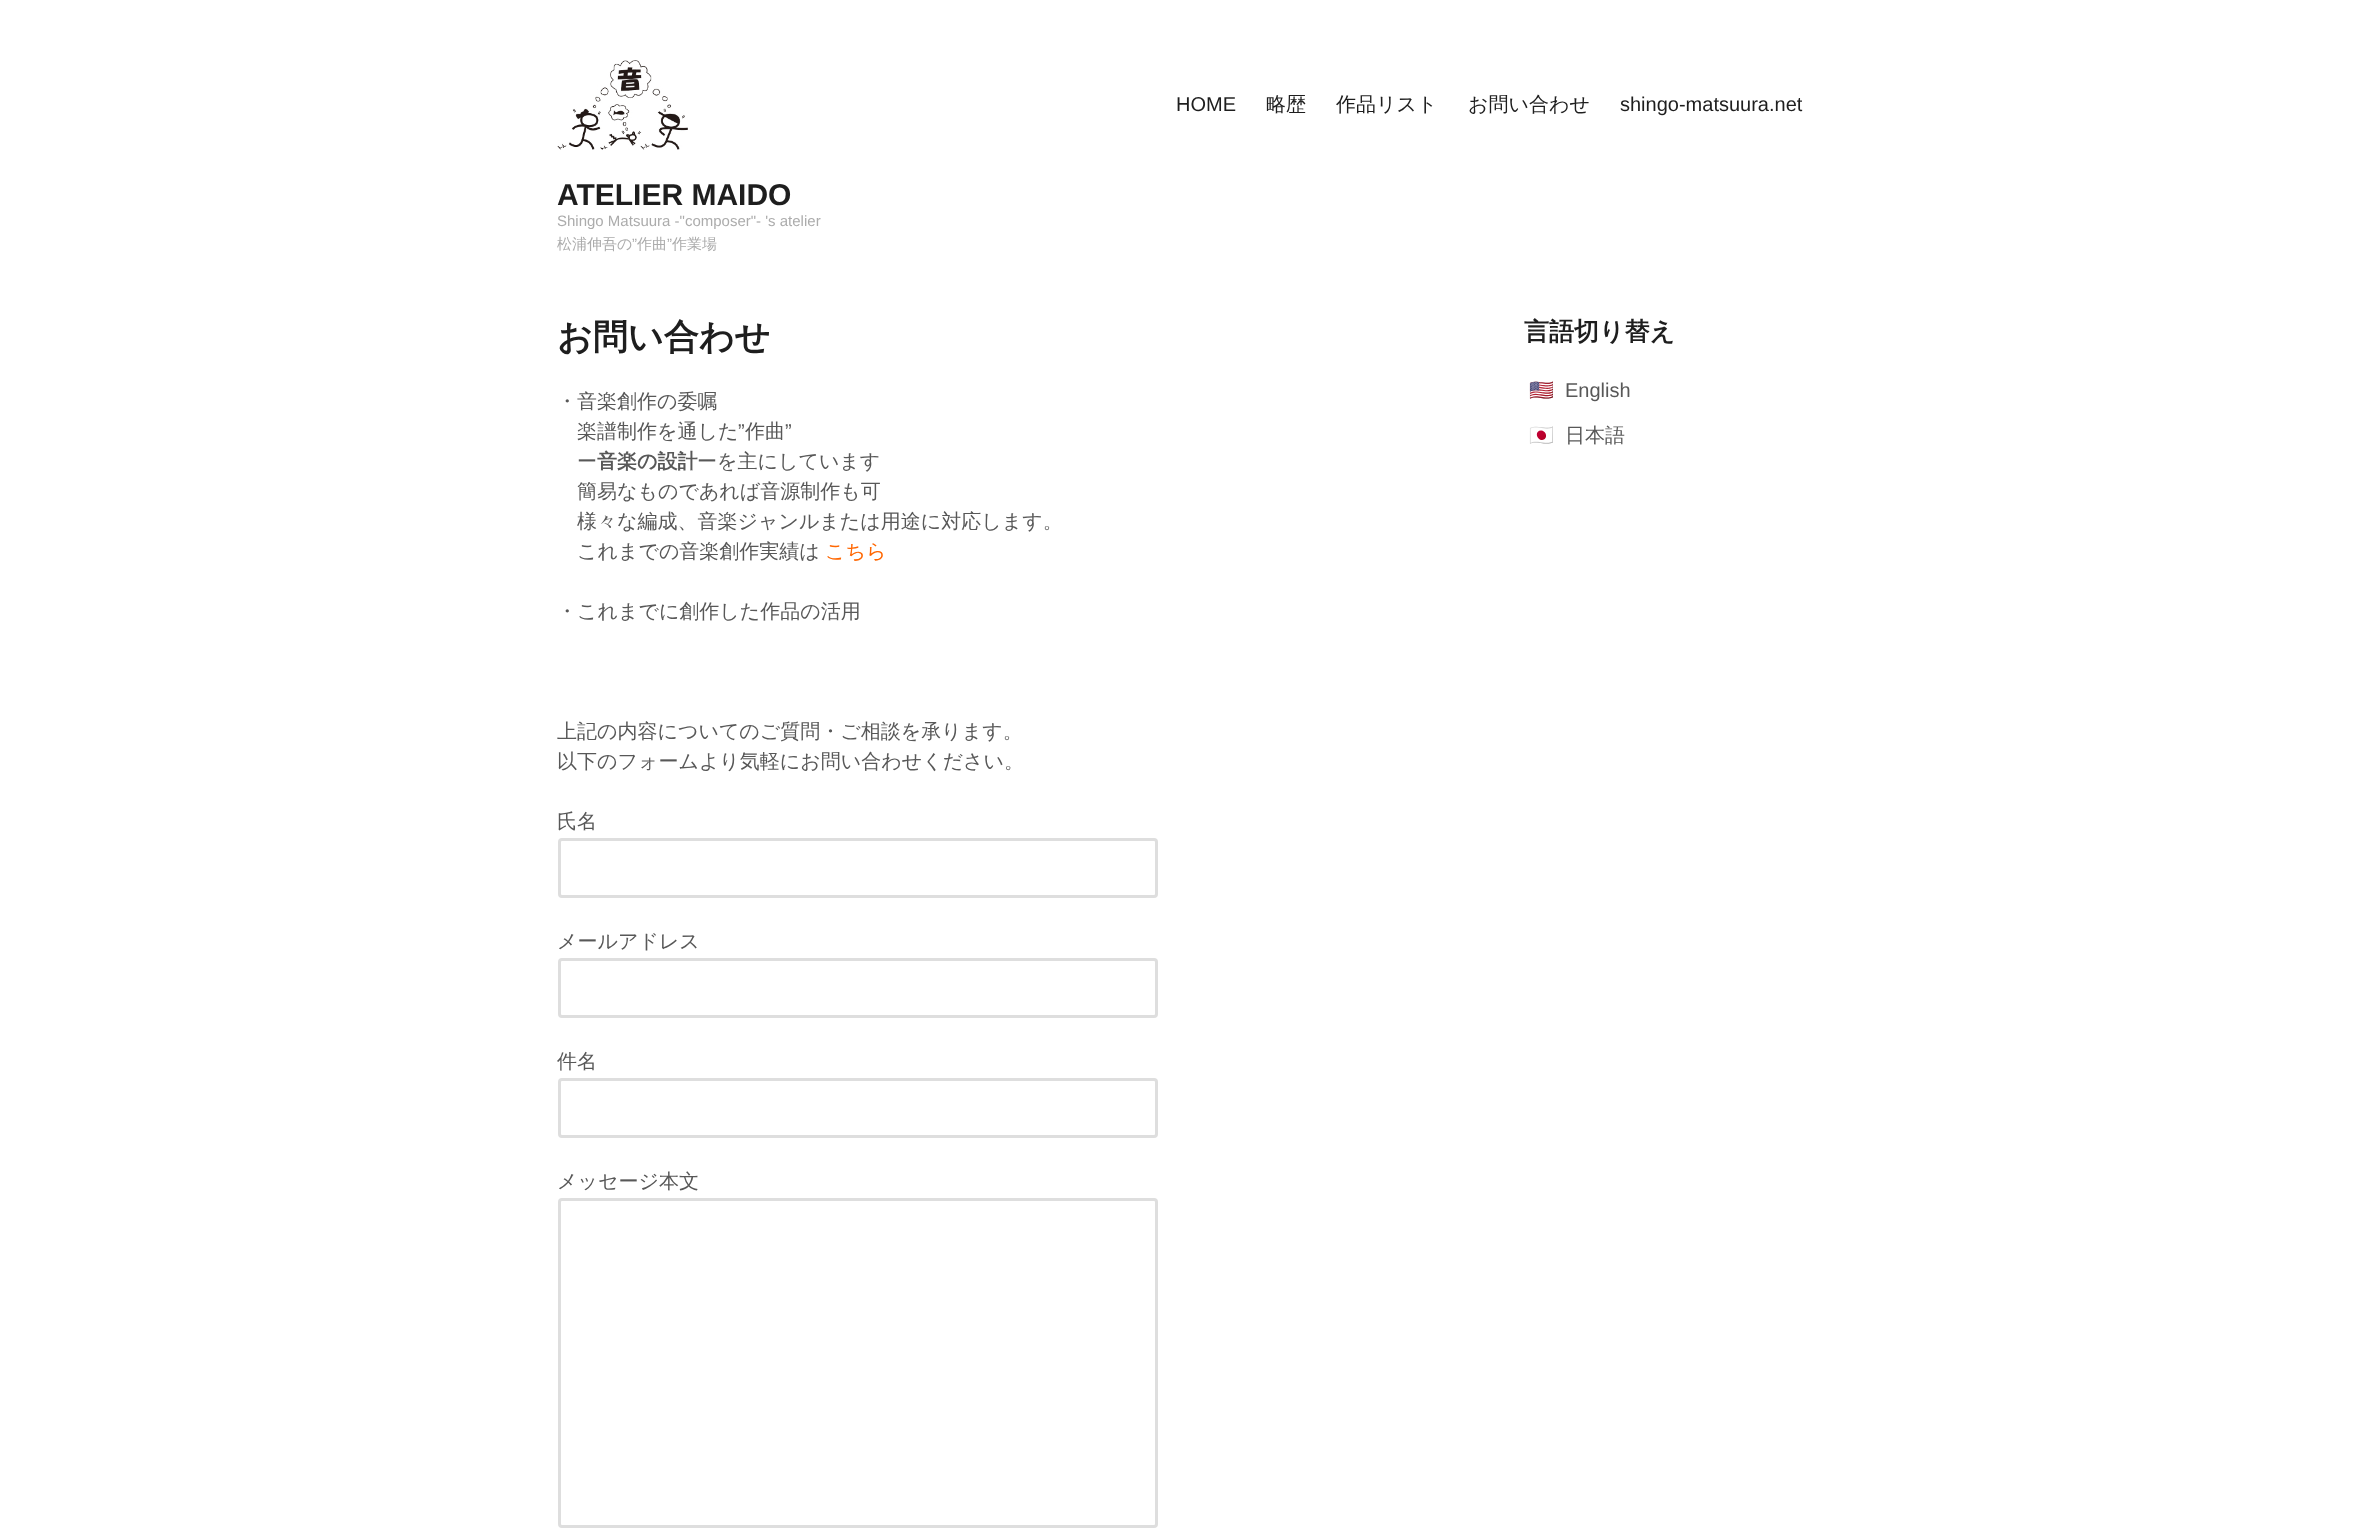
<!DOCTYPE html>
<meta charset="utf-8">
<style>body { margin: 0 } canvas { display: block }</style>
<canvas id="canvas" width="2358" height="1535"></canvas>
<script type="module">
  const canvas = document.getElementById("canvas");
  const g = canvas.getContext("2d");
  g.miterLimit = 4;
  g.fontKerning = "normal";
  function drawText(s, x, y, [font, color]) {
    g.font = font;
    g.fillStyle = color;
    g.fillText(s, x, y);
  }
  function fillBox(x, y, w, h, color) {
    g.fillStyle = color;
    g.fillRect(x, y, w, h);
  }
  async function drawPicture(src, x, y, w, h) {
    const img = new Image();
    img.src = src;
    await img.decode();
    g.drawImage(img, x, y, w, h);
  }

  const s1 = ["20px Liberation Sans", "#1E1E1E"];
  const s2 = ["500 20px WenQuanYi Zen Hei", "#1E1E1E"];
  const s3 = ["bold 30px Liberation Sans", "#1E1E1E"];
  const s4 = ["15px Liberation Sans", "#ACACAC"];
  const s5 = ["500 15px WenQuanYi Zen Hei", "#ACACAC"];
  const s6 = ["bold 35px WenQuanYi Zen Hei", "#1E1E1E"];
  const s7 = ["500 20px WenQuanYi Zen Hei", "#585858"];
  const s8 = ["20px Liberation Sans", "#585858"];
  const s9 = ["bold 20px WenQuanYi Zen Hei", "#585858"];
  const s10 = ["500 20px WenQuanYi Zen Hei", "#FF6600"];
  const s11 = ["bold 25px WenQuanYi Zen Hei", "#1E1E1E"];
  const s12 = ["20px Noto Color Emoji", "#585858"];

  fillBox(0, 0, 2358, 1535, "#FFFFFF");
  drawText("HOME", 1176, 111, s1);
  drawText("略歴", 1266, 111, s2);
  drawText("作品リスト", 1336, 111, s2);
  drawText("お問い合わせ", 1468, 111, s2);
  drawText("shingo-matsuura.net", 1620, 111, s1);
  await drawPicture("pic1.png", 557, 60, 131, 90);
  drawText("ATELIER MAIDO", 557, 205, s3);
  drawText("Shingo Matsuura -\"composer\"- 's atelier", 557, 226, s4);
  drawText("松浦伸吾の", 557, 249, s5);
  drawText("”", 632, 249, s4);
  drawText("作曲", 637, 249, s5);
  drawText("”", 667, 249, s4);
  drawText("作業場", 672, 249, s5);
  drawText("お問い合わせ", 557, 349, s6);
  drawText("・音楽創作の委嘱", 557, 408, s7);
  drawText("楽譜制作を通した", 577, 438, s7);
  drawText("”", 738, 438, s8);
  drawText("作曲", 745, 438, s7);
  drawText("”", 785, 438, s8);
  drawText("ー", 577, 468, s7);
  drawText("音楽の設計", 597, 468, s9);
  drawText("ーを主にしています", 697, 468, s7);
  drawText("簡易なものであれば音源制作も可", 577, 498, s7);
  drawText("様々な編成、音楽ジャンルまたは用途に対応します。", 577, 528, s7);
  drawText("これまでの音楽創作実績は", 577, 558, s7);
  drawText("こちら", 825, 558, s10);
  drawText("・これまでに創作した作品の活用", 557, 618, s7);
  drawText("上記の内容についてのご質問・ご相談を承ります。", 557, 738, s7);
  drawText("以下のフォームより気軽にお問い合わせください。", 557, 768, s7);
  drawText("氏名", 557, 828, s7);
  g.beginPath();
  g.roundRect(559.5, 839.5, 597, 57, 2.5);
  g.strokeStyle = "#DEDEDE";
  g.lineWidth = 3;
  g.stroke();
  drawText("メールアドレス", 557, 948, s7);
  g.beginPath();
  g.roundRect(559.5, 959.5, 597, 57, 2.5);
  g.stroke();
  drawText("件名", 557, 1068, s7);
  g.beginPath();
  g.roundRect(559.5, 1079.5, 597, 57, 2.5);
  g.stroke();
  drawText("メッセージ本文", 557, 1188, s7);
  g.beginPath();
  g.roundRect(559.5, 1199.5, 597, 327, 2.5);
  g.stroke();
  drawText("言語切り替え", 1524, 340, s11);
  drawText("🇺🇸", 1529, 397, s12);
  drawText("English", 1565, 397, s8);
  drawText("🇯🇵", 1529, 442, s12);
  drawText("日本語", 1565, 442, s7);
</script>
